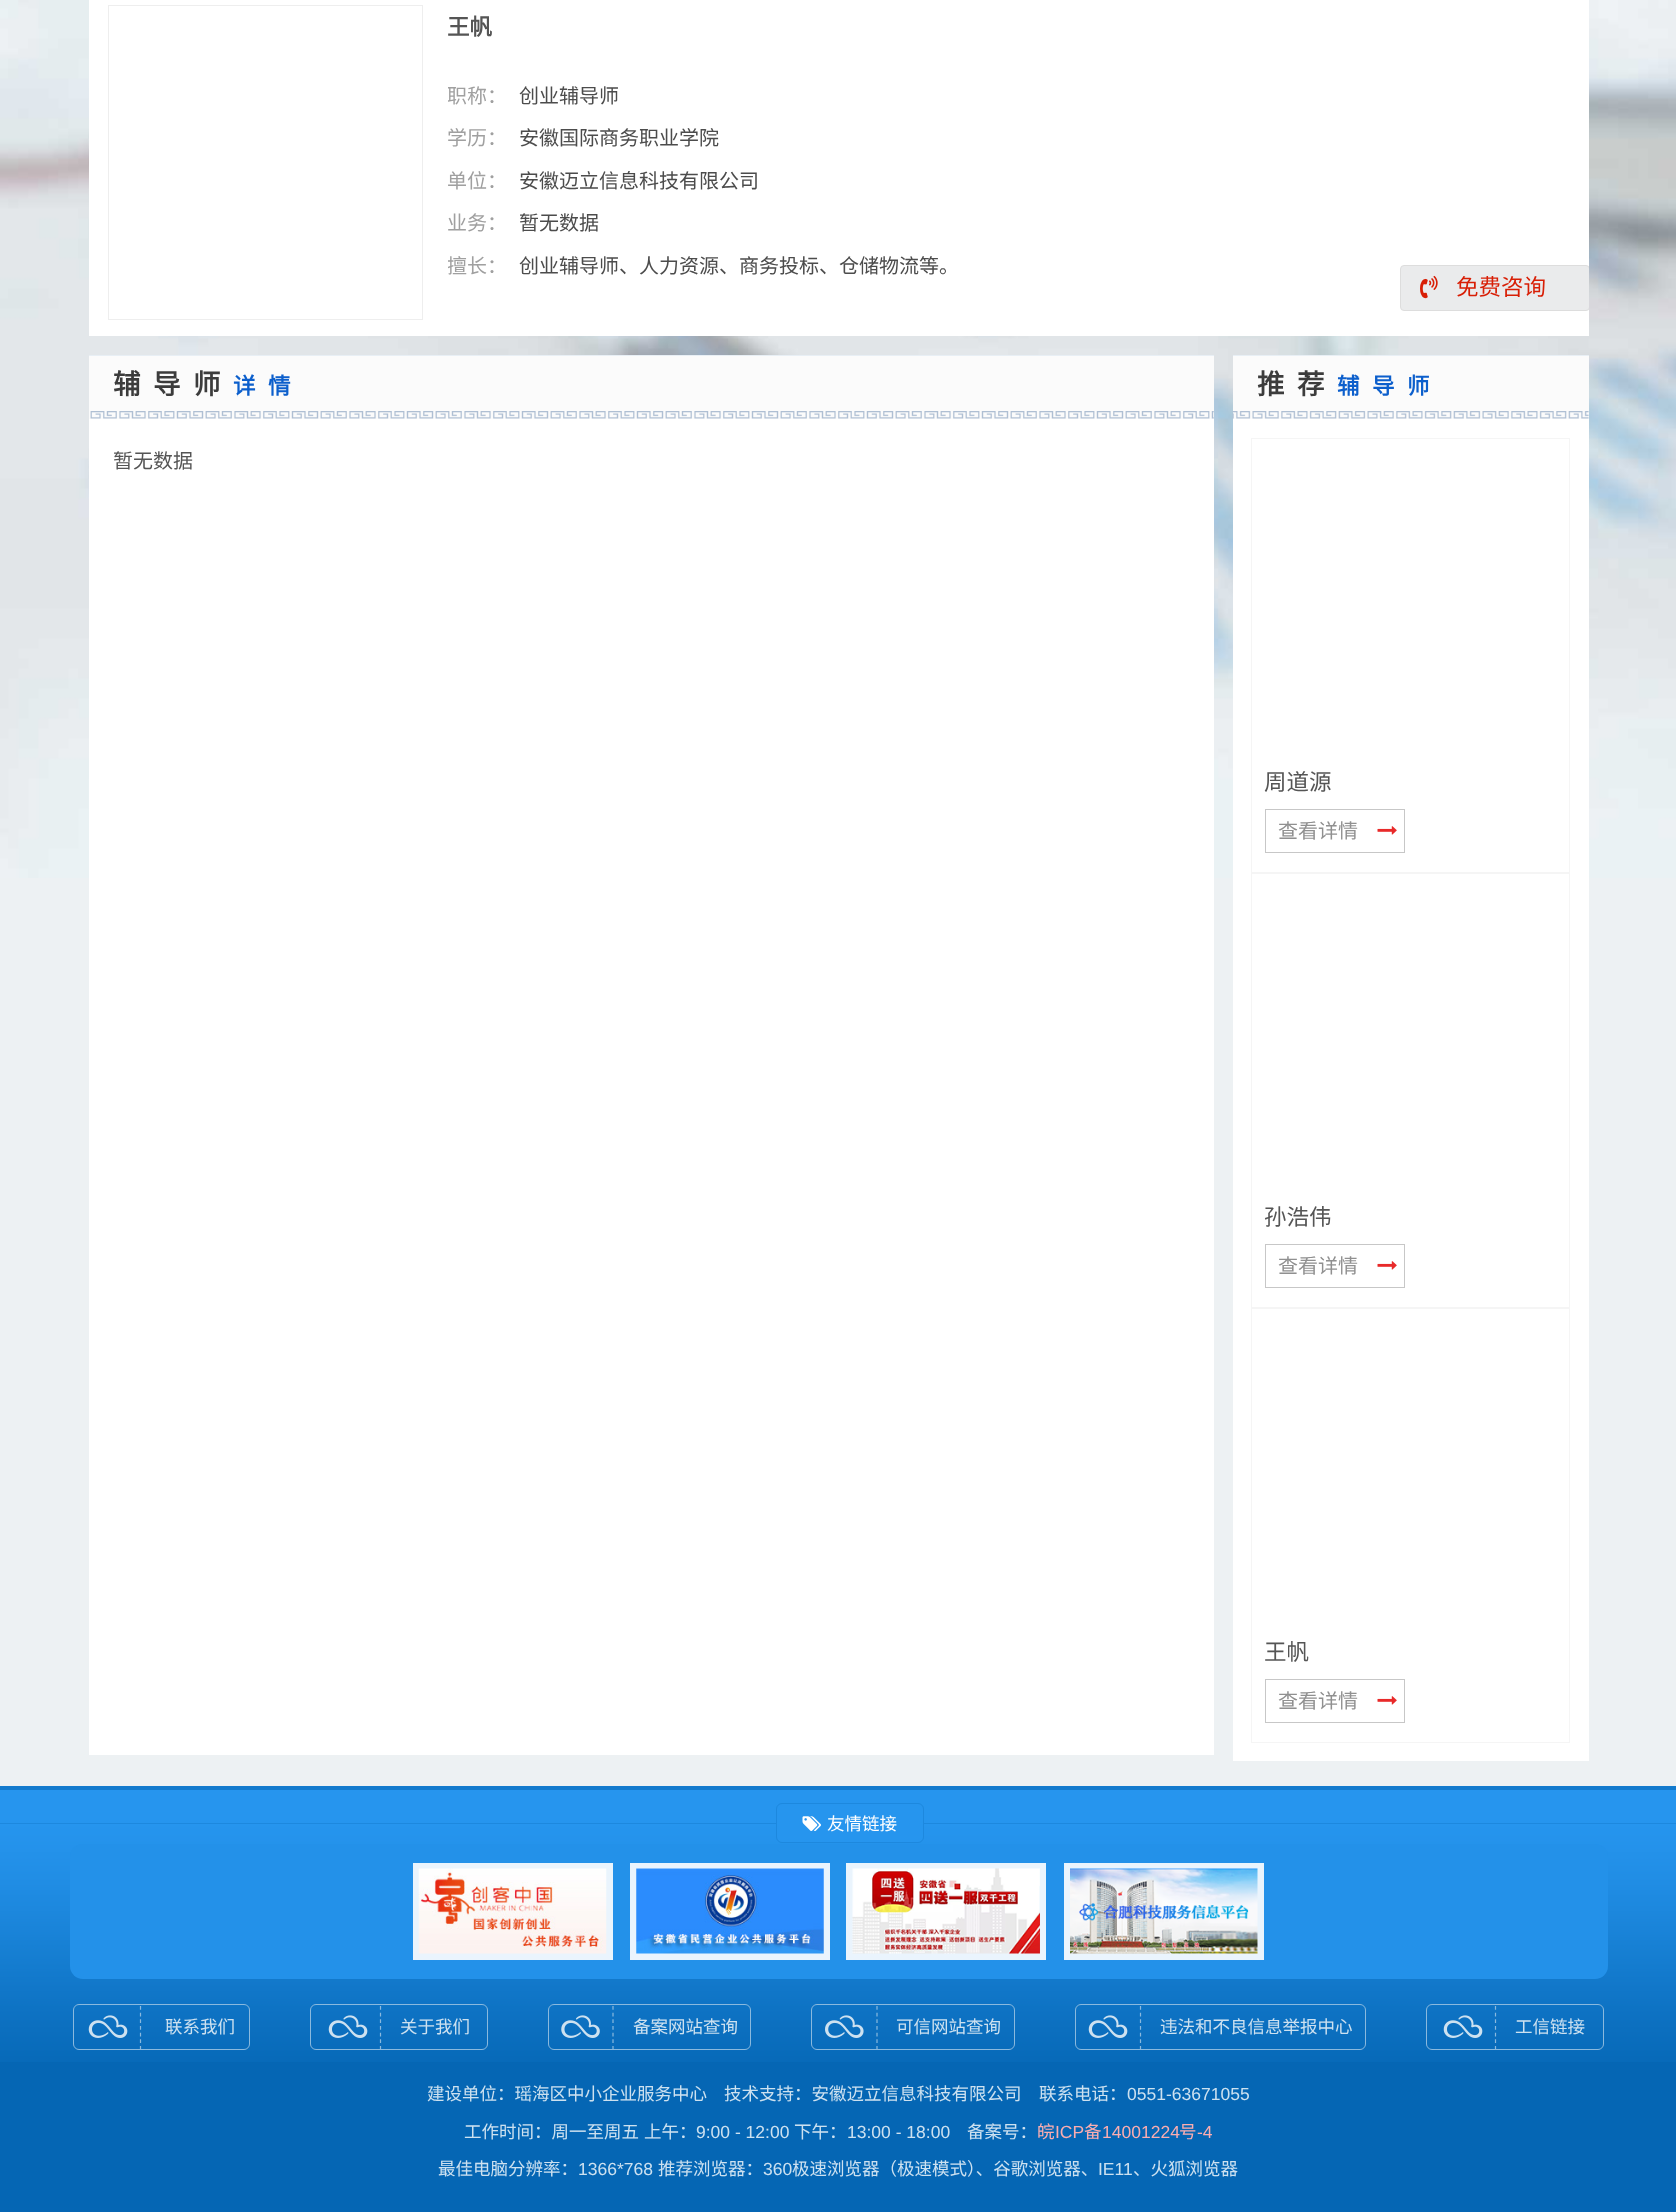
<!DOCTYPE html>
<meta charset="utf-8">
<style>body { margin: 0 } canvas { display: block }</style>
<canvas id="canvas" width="1676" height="2212"></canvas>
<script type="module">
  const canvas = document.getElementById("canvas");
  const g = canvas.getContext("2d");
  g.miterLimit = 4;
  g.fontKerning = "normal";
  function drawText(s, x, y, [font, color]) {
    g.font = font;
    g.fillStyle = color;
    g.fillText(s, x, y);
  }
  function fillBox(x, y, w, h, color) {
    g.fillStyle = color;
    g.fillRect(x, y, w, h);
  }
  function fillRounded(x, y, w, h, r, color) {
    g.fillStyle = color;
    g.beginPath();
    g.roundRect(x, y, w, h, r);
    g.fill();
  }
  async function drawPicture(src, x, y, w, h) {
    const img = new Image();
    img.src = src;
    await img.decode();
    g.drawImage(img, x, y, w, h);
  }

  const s1 = ["bold 22.5px Noto Sans CJK SC", "#555555"];
  const s2 = ["20px Noto Sans CJK SC", "#A0A0A0"];
  const s3 = ["20px Noto Sans CJK SC", "#4C4C4C"];
  const s4 = ["22.5px Noto Sans CJK SC", "#D81E05"];
  const s5 = ["bold 27.5px Noto Sans CJK SC", "#3C3C3C"];
  const s6 = ["bold 22.5px Noto Sans CJK SC", "#0C5FCC"];
  const s7 = ["20px Noto Sans CJK SC", "#555555"];
  const s8 = ["22.5px Noto Sans CJK SC", "#555555"];
  const s9 = ["20px Noto Sans CJK SC", "#909090"];
  const s10 = ["17.5px Noto Sans CJK SC", "#FFFFFF"];
  const s11 = ["17.5px Noto Sans CJK SC", "#CDE1F0"];
  const s12 = ["17.5px Liberation Sans", "#CDE1F0"];
  const s13 = ["17.5px Noto Sans CJK SC", "#FBADB0"];
  const s14 = ["17.5px Liberation Sans", "#FBADB0"];

  fillBox(0, 0, 1676, 2212, "#EDF1F3");
  await drawPicture("pic1.png", 0, 0, 1676, 878);
  fillBox(89, 0, 1500, 336, "#FFFFFF");
  g.strokeStyle = "#EEEEEE";
  g.strokeRect(108.5, 5.5, 314, 314);
  drawText("王帆", 447, 35, s1);
  g.save();
  g.beginPath();
  g.rect(448, 75, 1096, 43);
  g.clip();
  drawText("职称：", 447, 103, s2);
  g.restore();
  drawText("创业辅导师", 519, 103, s3);
  drawText("学历：", 447, 145, s2);
  drawText("安徽国际商务职业学院", 519, 145, s3);
  drawText("单位：", 447, 188, s2);
  drawText("安徽迈立信息科技有限公司", 519, 188, s3);
  drawText("业务：", 447, 230, s2);
  drawText("暂无数据", 519, 230, s3);
  g.save();
  g.beginPath();
  g.rect(448, 245, 1096, 43);
  g.clip();
  drawText("擅长：", 447, 273, s2);
  g.restore();
  drawText("创业辅导师、人力资源、商务投标、仓储物流等。", 519, 273, s3);
  g.save();
  g.beginPath();
  g.rect(89, 0, 1500, 1761);
  g.clip();
  g.fillStyle = "#EAEBEC";
  g.beginPath();
  g.roundRect(1400.5, 265.5, 189, 45, 3.5);
  g.fill();
  g.strokeStyle = "#DDDDDD";
  g.stroke();
  g.restore();
  await drawPicture("pic2.png", 1420, 275, 18, 24);
  drawText("免费咨询", 1456, 295, s4);
  fillBox(89, 419, 1125, 1336, "#FFFFFF");
  fillBox(89, 356, 1125, 63, "#FBFBFB");
  await drawPicture("pic3.png", 90, 411, 1124, 8);
  fillBox(89, 355, 1125, 1, "#E8EFF5");
  g.letterSpacing = "12.5px";
  drawText("辅导师", 113, 394, s5);
  drawText("详情", 233, 394, s6);
  g.letterSpacing = "0px";
  drawText("暂无数据", 113, 468, s7);
  fillBox(1233, 419, 356, 1342, "#FFFFFF");
  fillBox(1233, 356, 356, 63, "#FBFBFB");
  await drawPicture("pic4.png", 1232, 411, 357, 8);
  fillBox(1233, 355, 356, 1, "#E8EFF5");
  g.letterSpacing = "12.5px";
  drawText("推荐", 1257, 394, s5);
  drawText("辅导师", 1337, 394, s6);
  g.strokeStyle = "#F5F5F5";
  g.strokeRect(1251.5, 438.5, 318, 434);
  g.letterSpacing = "0px";
  drawText("周道源", 1264, 790, s8);
  g.strokeStyle = "#C7C7C7";
  g.strokeRect(1265.5, 809.5, 139, 43);
  drawText("查看详情", 1278, 838, s9);
  await drawPicture("pic5.png", 1377, 826, 20, 9);
  g.strokeStyle = "#F5F5F5";
  g.strokeRect(1251.5, 873.5, 318, 434);
  drawText("孙浩伟", 1264, 1225, s8);
  g.strokeStyle = "#C7C7C7";
  g.strokeRect(1265.5, 1244.5, 139, 43);
  drawText("查看详情", 1278, 1273, s9);
  await drawPicture("pic5.png", 1377, 1261, 20, 9);
  g.strokeStyle = "#F5F5F5";
  g.strokeRect(1251.5, 1308.5, 318, 434);
  drawText("王帆", 1264, 1660, s8);
  g.strokeStyle = "#C7C7C7";
  g.strokeRect(1265.5, 1679.5, 139, 43);
  drawText("查看详情", 1278, 1708, s9);
  await drawPicture("pic5.png", 1377, 1696, 20, 9);
  fillBox(0, 2062, 1676, 150, "#0566B4");
  await drawPicture("pic6.png", 0, 1790, 1676, 272);
  fillBox(0, 1786, 1676, 4, "#127ACD");
  fillBox(0, 1823, 1676, 1, "#1D88DE");
  g.fillStyle = "#2695EE";
  g.beginPath();
  g.roundRect(776.5, 1803.5, 147, 39, 5.5);
  g.fill();
  g.strokeStyle = "#1D88DE";
  g.stroke();
  await drawPicture("pic7.png", 802, 1816, 19, 15);
  drawText("友情链接", 827, 1830, s10);
  fillRounded(70, 1844, 1538, 135, 13, "#2391E9");
  fillBox(413, 1863, 200, 97, "#EAF4FD");
  await drawPicture("pic8.png", 418, 1868, 189, 86);
  fillBox(630, 1863, 200, 97, "#EAF4FD");
  await drawPicture("pic9.png", 636, 1868, 188, 86);
  fillBox(846, 1863, 200, 97, "#EAF4FD");
  await drawPicture("pic10.png", 852, 1868, 188, 86);
  fillBox(1064, 1863, 200, 97, "#EAF4FD");
  await drawPicture("pic11.png", 1070, 1868, 188, 86);
  g.beginPath();
  g.roundRect(73.5, 2004.5, 176, 45, 5.5);
  g.strokeStyle = "#8AB9DE";
  g.stroke();
  g.beginPath();
  g.moveTo(140.5, 2006);
  g.lineTo(140.5, 2050);
  g.lineWidth = 1.2;
  g.setLineDash([3.75, 2.91]);
  g.stroke();
  await drawPicture("pic12.png", 88, 2015, 40, 23);
  drawText("联系我们", 165, 2033, s11);
  g.beginPath();
  g.roundRect(310.5, 2004.5, 177, 45, 5.5);
  g.lineWidth = 1;
  g.setLineDash([]);
  g.stroke();
  g.beginPath();
  g.moveTo(380.5, 2006);
  g.lineTo(380.5, 2050);
  g.lineWidth = 1.2;
  g.setLineDash([3.75, 2.91]);
  g.stroke();
  await drawPicture("pic12.png", 328, 2015, 40, 23);
  drawText("关于我们", 400, 2033, s11);
  g.beginPath();
  g.roundRect(548.5, 2004.5, 202, 45, 5.5);
  g.lineWidth = 1;
  g.setLineDash([]);
  g.stroke();
  g.beginPath();
  g.moveTo(613, 2006);
  g.lineTo(613, 2050);
  g.lineWidth = 1.2;
  g.setLineDash([3.75, 2.91]);
  g.stroke();
  await drawPicture("pic13.png", 561, 2015, 39, 23);
  drawText("备案网站查询", 633, 2033, s11);
  g.beginPath();
  g.roundRect(811.5, 2004.5, 203, 45, 5.5);
  g.lineWidth = 1;
  g.setLineDash([]);
  g.stroke();
  g.beginPath();
  g.moveTo(877, 2006);
  g.lineTo(877, 2050);
  g.lineWidth = 1.2;
  g.setLineDash([3.75, 2.91]);
  g.stroke();
  await drawPicture("pic14.png", 825, 2015, 39, 23);
  drawText("可信网站查询", 896, 2033, s11);
  g.beginPath();
  g.roundRect(1075.5, 2004.5, 290, 45, 5.5);
  g.lineWidth = 1;
  g.setLineDash([]);
  g.stroke();
  g.beginPath();
  g.moveTo(1140.5, 2006);
  g.lineTo(1140.5, 2050);
  g.lineWidth = 1.2;
  g.setLineDash([3.75, 2.91]);
  g.stroke();
  await drawPicture("pic12.png", 1088, 2015, 40, 23);
  drawText("违法和不良信息举报中心", 1160, 2033, s11);
  g.beginPath();
  g.roundRect(1426.5, 2004.5, 177, 45, 5.5);
  g.lineWidth = 1;
  g.setLineDash([]);
  g.stroke();
  g.beginPath();
  g.moveTo(1495.5, 2006);
  g.lineTo(1495.5, 2050);
  g.lineWidth = 1.2;
  g.setLineDash([3.75, 2.91]);
  g.stroke();
  await drawPicture("pic12.png", 1443, 2015, 40, 23);
  drawText("工信链接", 1515, 2033, s11);
  drawText("建设单位：瑶海区中小企业服务中心", 427, 2100, s11);
  drawText("技术支持：安徽迈立信息科技有限公司", 724, 2100, s11);
  drawText("联系电话：", 1039, 2100, s11);
  drawText("0551-63671055", 1127, 2100, s12);
  drawText("工作时间：周一至周五", 464, 2138, s11);
  drawText("上午：", 644, 2138, s11);
  drawText("9:00 - 12:00", 696, 2138, s12);
  drawText("下午：", 794, 2138, s11);
  drawText("13:00 - 18:00", 847, 2138, s12);
  drawText("备案号：", 967, 2138, s11);
  drawText("皖", 1037, 2138, s13);
  drawText("ICP", 1055, 2138, s14);
  drawText("备", 1084, 2138, s13);
  drawText("14001224", 1102, 2138, s14);
  drawText("号", 1179, 2138, s13);
  drawText("-4", 1197, 2138, s14);
  drawText("最佳电脑分辨率：", 438, 2175, s11);
  drawText("1366*768", 578, 2175, s12);
  drawText("推荐浏览器：", 658, 2175, s11);
  drawText("360", 763, 2175, s12);
  drawText("极速浏览器（极速模式）、谷歌浏览器、", 792, 2175, s11);
  drawText("IE11", 1098, 2175, s12);
  drawText("、火狐浏览器", 1133, 2175, s11);
</script>
